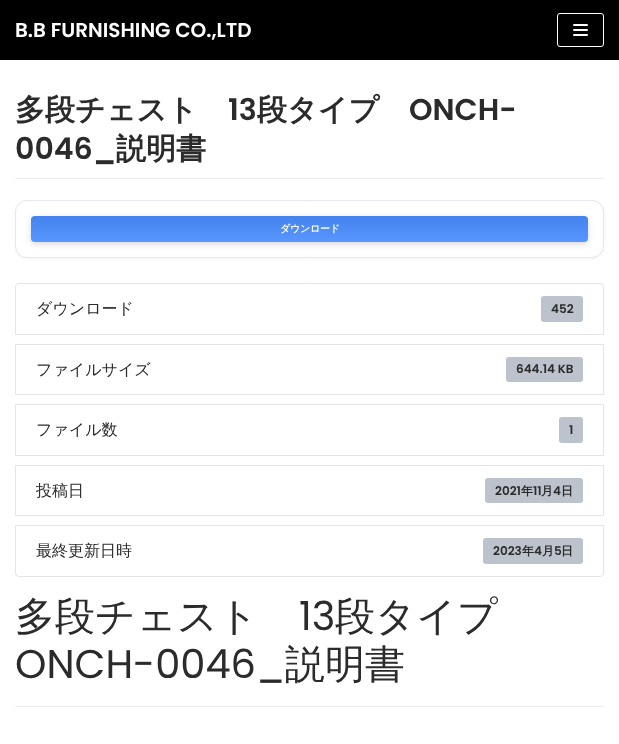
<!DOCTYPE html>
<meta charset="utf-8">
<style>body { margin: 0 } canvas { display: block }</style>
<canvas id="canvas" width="619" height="744"></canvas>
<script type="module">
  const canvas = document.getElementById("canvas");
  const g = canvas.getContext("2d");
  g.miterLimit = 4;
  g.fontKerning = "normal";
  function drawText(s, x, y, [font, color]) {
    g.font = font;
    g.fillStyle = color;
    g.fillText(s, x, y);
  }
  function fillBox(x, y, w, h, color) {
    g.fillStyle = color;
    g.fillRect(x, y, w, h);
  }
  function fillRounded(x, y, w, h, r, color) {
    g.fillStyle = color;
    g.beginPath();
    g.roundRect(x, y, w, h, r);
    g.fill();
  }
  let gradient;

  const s1 = ["600 20px Poppins", "#FFFFFF"];
  const s2 = ["bold 30px WenQuanYi Zen Hei", "#2B2B2B"];
  const s3 = ["600 30px Poppins", "#2B2B2B"];
  const s4 = ["bold 10px WenQuanYi Zen Hei", "#FFFFFF"];
  const s5 = ["500 16px WenQuanYi Zen Hei", "#2B2B2B"];
  const s6 = ["600 12px Poppins", "#2B2B2B"];
  const s7 = ["bold 12px WenQuanYi Zen Hei", "#2B2B2B"];
  const s8 = ["500 40px WenQuanYi Zen Hei", "#2B2B2B"];
  const s9 = ["40px Poppins", "#2B2B2B"];

  fillBox(0, 0, 619, 744, "#FFFFFF");
  fillBox(0, 0, 619, 60, "#000000");
  drawText("B.B FURNISHING CO.,LTD", 15, 37, s1);
  g.beginPath();
  g.roundRect(557.5, 13.5, 46, 33, 2.5);
  g.strokeStyle = "#FFFFFF";
  g.stroke();
  fillRounded(573, 24, 15, 2, 1, "#FFFFFF");
  fillRounded(573, 29, 15, 2, 1, "#FFFFFF");
  fillRounded(573, 34, 15, 2, 1, "#FFFFFF");
  fillBox(15, 178, 589, 1, "#EDEDED");
  drawText("多段チェスト", 15, 120, s2);
  drawText("13", 228, 120, s3);
  drawText("段タイプ", 257, 120, s2);
  drawText("ONCH-", 409, 120, s3);
  drawText("0046_", 15, 159, s3);
  drawText("説明書", 116, 159, s2);
  g.fillStyle = "rgba(0, 0, 0, 0.04)";
  g.filter = "blur(1.5px)";
  g.beginPath();
  g.roundRect(15, 201, 589, 58, 12);
  g.fill();
  g.filter = "none";
  g.fillStyle = "#FFFFFF";
  g.beginPath();
  g.roundRect(15.5, 200.5, 588, 57, 11.5);
  g.fill();
  g.strokeStyle = "#E2E8F0";
  g.stroke();
  g.fillStyle = "rgba(0, 0, 0, 0.15)";
  g.filter = "blur(3px)";
  g.beginPath();
  g.roundRect(31, 218, 557, 26, 4);
  g.fill();
  g.filter = "none";
  fillRounded(31, 216, 557, 26, 4, "#4A8EFF");
  gradient = g.createLinearGradient(310, 216, 310, 242);
  gradient.addColorStop(0, "rgba(0, 0, 0, 0.08)");
  gradient.addColorStop(1, "rgba(255, 255, 255, 0.08)");
  g.fillStyle = gradient;
  g.beginPath();
  g.roundRect(31, 216, 557, 26, 4);
  g.fill();
  g.letterSpacing = "-0.25px";
  drawText("ダウンロード", 280, 232, s4);
  g.beginPath();
  g.roundRect(15.5, 283.5, 588, 51, [3.5, 3.5, 0, 0]);
  g.strokeStyle = "#E5E5E5";
  g.stroke();
  g.letterSpacing = "0px";
  drawText("ダウンロード", 36, 314, s5);
  fillRounded(541, 296, 42, 26, 3, "#BCC3CC");
  drawText("452", 551, 313, s6);
  g.strokeRect(15.5, 344.5, 588, 50);
  drawText("ファイルサイズ", 36, 375, s5);
  fillRounded(506, 357, 77, 25, 3, "#BCC3CC");
  drawText("644.14 KB", 516, 373, s6);
  g.strokeRect(15.5, 404.5, 588, 51);
  drawText("ファイル数", 36, 435, s5);
  fillRounded(559, 417, 24, 26, 3, "#BCC3CC");
  drawText("1", 569, 434, s6);
  g.strokeRect(15.5, 465.5, 588, 50);
  drawText("投稿日", 36, 496, s5);
  fillRounded(485, 478, 98, 25, 3, "#BCC3CC");
  drawText("2021", 495, 495, s6);
  drawText("年", 521, 495, s7);
  drawText("11", 533, 495, s6);
  drawText("月", 541, 495, s7);
  drawText("4", 553, 495, s6);
  drawText("日", 561, 495, s7);
  g.beginPath();
  g.roundRect(15.5, 525.5, 588, 51, [0, 0, 3.5, 3.5]);
  g.stroke();
  drawText("最終更新日時", 36, 556, s5);
  fillRounded(483, 538, 100, 26, 3, "#BCC3CC");
  drawText("2023", 493, 555, s6);
  drawText("年", 522, 555, s7);
  drawText("4", 534, 555, s6);
  drawText("月", 542, 555, s7);
  drawText("5", 554, 555, s6);
  drawText("日", 561, 555, s7);
  drawText("多段チェスト", 15, 630, s8);
  drawText("13", 299, 630, s9);
  drawText("段タイプ", 335, 630, s8);
  drawText("ONCH-0046_", 15, 678, s9);
  drawText("説明書", 285, 678, s8);
  fillBox(15, 706, 589, 1, "#EDEDED");
</script>
